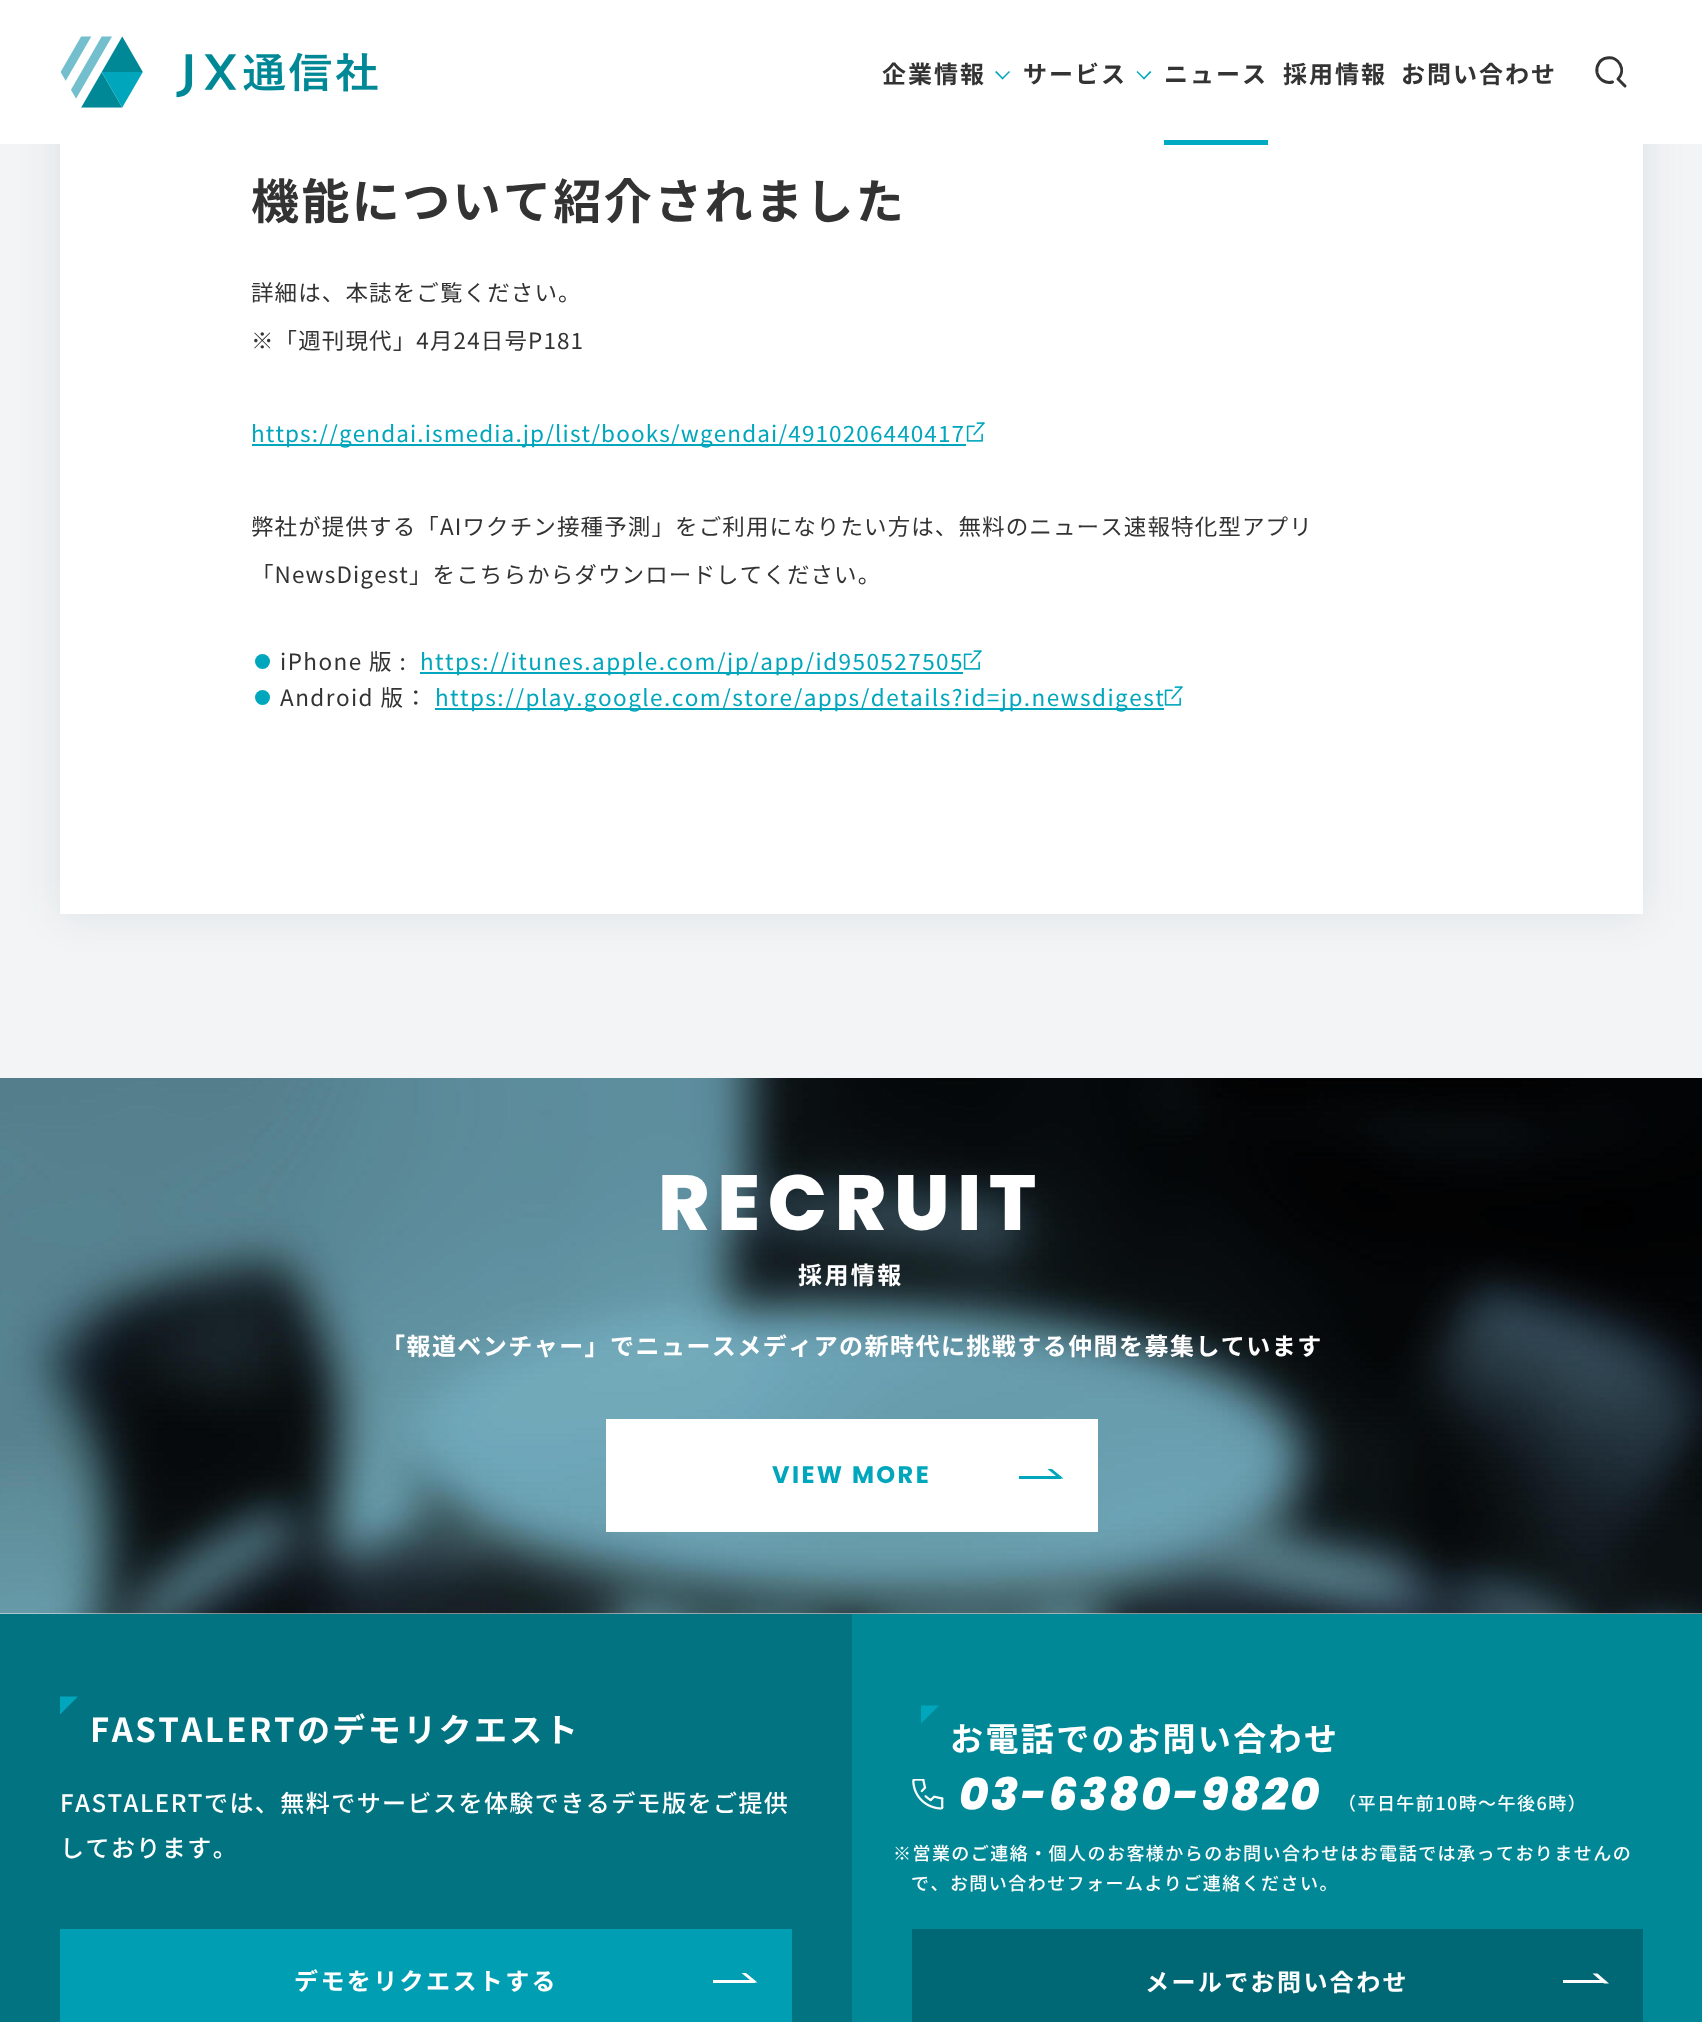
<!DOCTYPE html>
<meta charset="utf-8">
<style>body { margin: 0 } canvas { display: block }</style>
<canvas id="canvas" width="1702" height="2022"></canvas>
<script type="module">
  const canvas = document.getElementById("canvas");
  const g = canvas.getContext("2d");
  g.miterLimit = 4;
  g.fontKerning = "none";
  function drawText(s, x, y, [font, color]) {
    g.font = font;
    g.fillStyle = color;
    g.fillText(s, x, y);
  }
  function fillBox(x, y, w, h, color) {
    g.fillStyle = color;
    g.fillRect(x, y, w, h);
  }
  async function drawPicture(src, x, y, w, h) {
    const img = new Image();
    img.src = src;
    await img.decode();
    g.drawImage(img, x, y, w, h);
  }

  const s1 = ["bold 24px Noto Sans JP", "#333333"];
  const s2 = ["bold 48px Noto Sans JP", "#333333"];
  const s3 = ["22.5px Noto Sans JP", "#333333"];
  const s4 = ["22.5px Noto Sans JP", "#00A6BC"];
  const s5 = ["800 78px Poppins", "#FFFFFF"];
  const s6 = ["bold 24px Noto Sans JP", "#FFFFFF"];
  const s7 = ["bold 24px Poppins", "#00A6BC"];
  const s8 = ["bold 33px Noto Sans JP", "#FFFFFF"];
  const s9 = ["500 24px Noto Sans JP", "#FFFFFF"];
  const s10 = ["italic 800 45px Poppins", "#FFFFFF"];
  const s11 = ["500 18px Noto Sans JP", "#FFFFFF"];

  fillBox(0, 0, 1702, 2022, "#F2F4F5");
  g.fillStyle = "rgba(43, 68, 93, 0.1)";
  g.filter = "blur(21px)";
  g.beginPath();
  g.rect(60, -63, 1583, 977);
  g.fill();
  g.filter = "none";
  fillBox(0, 0, 1702, 144, "#FFFFFF");
  await drawPicture("pic1.png", 60, 36, 318, 72);
  g.letterSpacing = "2px";
  drawText("企業情報", 882, 83, s1);
  g.fillStyle = "#00A6BC";
  g.beginPath();
  g.moveTo(1001.5, 78.5);
  g.lineTo(1009, 71);
  g.lineTo(1010, 72);
  g.lineTo(1002.5, 79.5);
  g.closePath();
  g.fill();
  g.beginPath();
  g.moveTo(995, 72);
  g.lineTo(996.5, 71);
  g.lineTo(1003.5, 78.5);
  g.lineTo(1002.5, 79.5);
  g.closePath();
  g.fill();
  drawText("サービス", 1023, 83, s1);
  g.fillStyle = "#00A6BC";
  g.beginPath();
  g.moveTo(1143, 78.5);
  g.lineTo(1150, 71);
  g.lineTo(1151.5, 72);
  g.lineTo(1144, 79.5);
  g.closePath();
  g.fill();
  g.beginPath();
  g.moveTo(1136.5, 72);
  g.lineTo(1137.5, 71);
  g.lineTo(1145, 78.5);
  g.lineTo(1144, 79.5);
  g.closePath();
  g.fill();
  drawText("ニュース", 1164, 83, s1);
  fillBox(60, 144, 1583, 770, "#FFFFFF");
  fillBox(1164, 140, 104, 5, "#00ABC1");
  drawText("採用情報", 1283, 83, s1);
  drawText("お問い合わせ", 1401, 83, s1);
  g.beginPath();
  g.moveTo(1612.5, 82);
  g.bezierCurveTo(1606, 84, 1598.5, 79.5, 1597, 72.5);
  g.bezierCurveTo(1596.5, 69.5, 1597, 66, 1599, 63);
  g.bezierCurveTo(1600.5, 60.5, 1603.5, 58.5, 1606.5, 58);
  g.bezierCurveTo(1619, 55.5, 1626.5, 70.5, 1618, 79);
  g.moveTo(1625, 86);
  g.lineTo(1618, 79);
  g.strokeStyle = "#333333";
  g.lineWidth = 3;
  g.lineCap = "round";
  g.lineJoin = "round";
  g.stroke();
  g.letterSpacing = "2.4px";
  drawText("機能について紹介されました", 251, 219, s2);
  g.letterSpacing = "1.12px";
  drawText("詳細は、本誌をご覧ください。", 251, 301, s3);
  drawText("※「週刊現代」4月24日号P181", 251, 349, s3);
  fillBox(252, 444, 714, 2, "#00A6BC");
  drawText("https://gendai.ismedia.jp/list/books/wgendai/4910206440417", 251, 442, s4);
  await drawPicture("pic2.png", 966, 422, 19, 20);
  drawText("弊社が提供する「AIワクチン接種予測」をご利用になりたい方は、無料のニュース速報特化型アプリ", 251, 535, s3);
  drawText("「NewsDigest」をこちらからダウンロードしてください。", 251, 583, s3);
  g.fillStyle = "#00A6BC";
  g.beginPath();
  g.arc(262.5, 661.5, 7.5, 0, Math.PI * 2);
  g.fill();
  g.letterSpacing = "1.45px";
  drawText("iPhone 版 :", 280, 670, s3);
  fillBox(420, 672, 543, 2, "#00A6BC");
  drawText("https://itunes.apple.com/jp/app/id950527505", 420, 670, s4);
  await drawPicture("pic2.png", 963, 650, 19, 20);
  g.beginPath();
  g.arc(262.5, 697.5, 7.5, 0, Math.PI * 2);
  g.fill();
  drawText("Android 版：", 280, 706, s3);
  fillBox(435, 708, 729, 2, "#00A6BC");
  drawText("https://play.google.com/store/apps/details?id=jp.newsdigest", 435, 706, s4);
  await drawPicture("pic2.png", 1164, 686, 19, 20);
  await drawPicture("pic3.png", 0, 1078, 1702, 536);
  g.letterSpacing = "7.75px";
  drawText("RECRUIT", 658, 1230, s5);
  g.letterSpacing = "2.4px";
  drawText("採用情報", 798, 1284, s6);
  g.letterSpacing = "1.45px";
  drawText("「報道ベンチャー」でニュースメディアの新時代に挑戦する仲間を募集しています", 381, 1355, s6);
  fillBox(606, 1419, 492, 113, "#FFFFFF");
  g.letterSpacing = "2.4px";
  drawText("VIEW MORE", 772, 1483, s7);
  fillBox(1019, 1476, 42, 3, "#00A6BC");
  g.beginPath();
  g.moveTo(1052, 1469);
  g.lineTo(1063.5, 1478.5);
  g.lineTo(1059, 1478.5);
  g.lineTo(1047.5, 1469);
  g.closePath();
  g.fill();
  fillBox(0, 1614, 852, 408, "#027380");
  g.fillStyle = "#00A6BC";
  g.beginPath();
  g.moveTo(60, 1696.5);
  g.lineTo(78, 1696.5);
  g.lineTo(60, 1714.5);
  g.closePath();
  g.fill();
  drawText("FASTALERTのデモリクエスト", 90, 1742, s8);
  g.letterSpacing = "1.45px";
  drawText("FASTALERTでは、無料でサービスを体験できるデモ版をご提供", 60, 1812, s9);
  drawText("しております。", 60, 1857, s9);
  fillBox(60, 1929, 732, 93, "#009EB2");
  g.letterSpacing = "2.4px";
  drawText("デモをリクエストする", 294, 1990, s6);
  fillBox(713, 1980, 42, 3, "#FFFFFF");
  g.beginPath();
  g.moveTo(746, 1973);
  g.lineTo(757.5, 1982.5);
  g.lineTo(753, 1982.5);
  g.lineTo(741.5, 1973);
  g.closePath();
  g.fill();
  fillBox(852, 1614, 850, 408, "#008897");
  g.fillStyle = "#00A6BC";
  g.beginPath();
  g.moveTo(921, 1705.5);
  g.lineTo(939, 1705.5);
  g.lineTo(921, 1723.5);
  g.closePath();
  g.fill();
  drawText("お電話でのお問い合わせ", 950, 1751, s8);
  await drawPicture("pic4.png", 912, 1779, 32, 31);
  g.letterSpacing = "2.25px";
  drawText("03-6380-9820", 959, 1810, s10);
  g.letterSpacing = "1.45px";
  drawText("（平日午前10時〜午後6時）", 1338, 1810, s11);
  drawText("※営業のご連絡・個人のお客様からのお問い合わせはお電話では承っておりませんの", 893, 1860, s11);
  drawText("で、お問い合わせフォームよりご連絡ください。", 911, 1890, s11);
  fillBox(912, 1929, 731, 93, "#006874");
  g.letterSpacing = "2.4px";
  drawText("メールでお問い合わせ", 1145, 1991, s6);
  fillBox(1563, 1980, 42, 3, "#FFFFFF");
  g.beginPath();
  g.moveTo(1597.5, 1973.5);
  g.lineTo(1609, 1983.5);
  g.lineTo(1604, 1983.5);
  g.lineTo(1592.5, 1973.5);
  g.closePath();
  g.fill();
</script>
